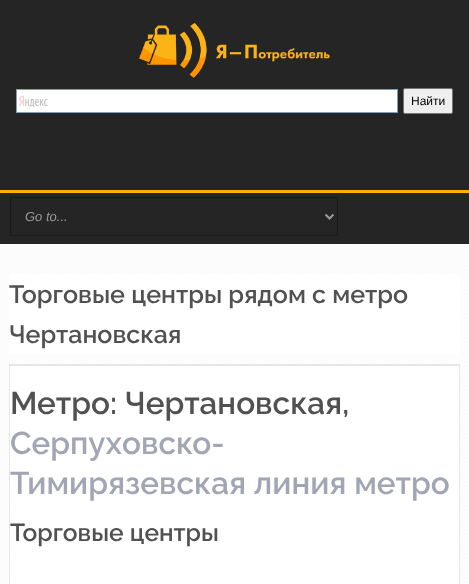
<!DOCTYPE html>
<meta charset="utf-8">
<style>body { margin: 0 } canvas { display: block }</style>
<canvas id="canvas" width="469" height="584"></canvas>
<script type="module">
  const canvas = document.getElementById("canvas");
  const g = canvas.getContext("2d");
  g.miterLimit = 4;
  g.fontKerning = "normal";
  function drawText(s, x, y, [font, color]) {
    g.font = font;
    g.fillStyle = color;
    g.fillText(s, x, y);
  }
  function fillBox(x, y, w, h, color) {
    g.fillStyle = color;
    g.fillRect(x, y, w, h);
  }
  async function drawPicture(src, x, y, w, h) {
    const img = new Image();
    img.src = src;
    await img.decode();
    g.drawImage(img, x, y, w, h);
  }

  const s1 = ["12px Liberation Sans", "#000000"];
  const s2 = ["italic 13px Liberation Sans", "#999A9B"];
  const s3 = ["600 25px Raleway", "#515151"];
  const s4 = ["600 31.5px Raleway", "#515151"];
  const s5 = ["600 31.5px Raleway", "#A2A5B4"];
  const s6 = ["600 24.5px Raleway", "#515151"];

  fillBox(0, 0, 469, 584, "#FFFFFF");
  await drawPicture("pic1.png", 0, 244, 469, 340);
  fillBox(0, 0, 469, 190, "#252525");
  await drawPicture("pic2.png", 139, 23, 191, 55);
  fillBox(17, 90, 380, 22, "#FFFFFF");
  await drawPicture("pic3.png", 19, 96, 29, 11);
  g.strokeStyle = "#7F9DB9";
  g.strokeRect(16.5, 89.5, 381, 23);
  g.fillStyle = "#EFEFEF";
  g.beginPath();
  g.roundRect(403.5, 88.5, 49, 25, 1.5);
  g.fill();
  g.strokeStyle = "#767676";
  g.stroke();
  drawText("Найти", 411, 105, s1);
  fillBox(0, 193, 469, 51, "#252525");
  fillBox(0, 190, 469, 3, "#FFB400");
  g.strokeStyle = "#181B1E";
  g.strokeRect(10.5, 197.5, 327, 38);
  g.beginPath();
  g.moveTo(325.5, 214.5);
  g.lineTo(329.5, 218.5);
  g.lineTo(333.5, 214.5);
  g.strokeStyle = "#999A9B";
  g.lineWidth = 2;
  g.stroke();
  drawText("Go to...", 25, 221, s2);
  fillBox(9, 274, 451, 80, "#FFFFFF");
  drawText("Торговые центры рядом с метро", 9, 303, s3);
  drawText("Чертановская", 9, 343, s3);
  fillBox(10, 366, 449, 218, "#FFFFFF");
  g.strokeStyle = "#E6E6E6";
  g.lineWidth = 1;
  g.strokeRect(9.5, 364.5, 450, 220);
  fillBox(10, 365, 449, 1, "#E6E6E6");
  drawText("Метро: Чертановская,", 10, 414, s4);
  drawText("Серпуховско-", 10, 454, s5);
  drawText("Тимирязевская линия метро", 10, 494, s5);
  drawText("Торговые центры", 10, 541, s6);
</script>
